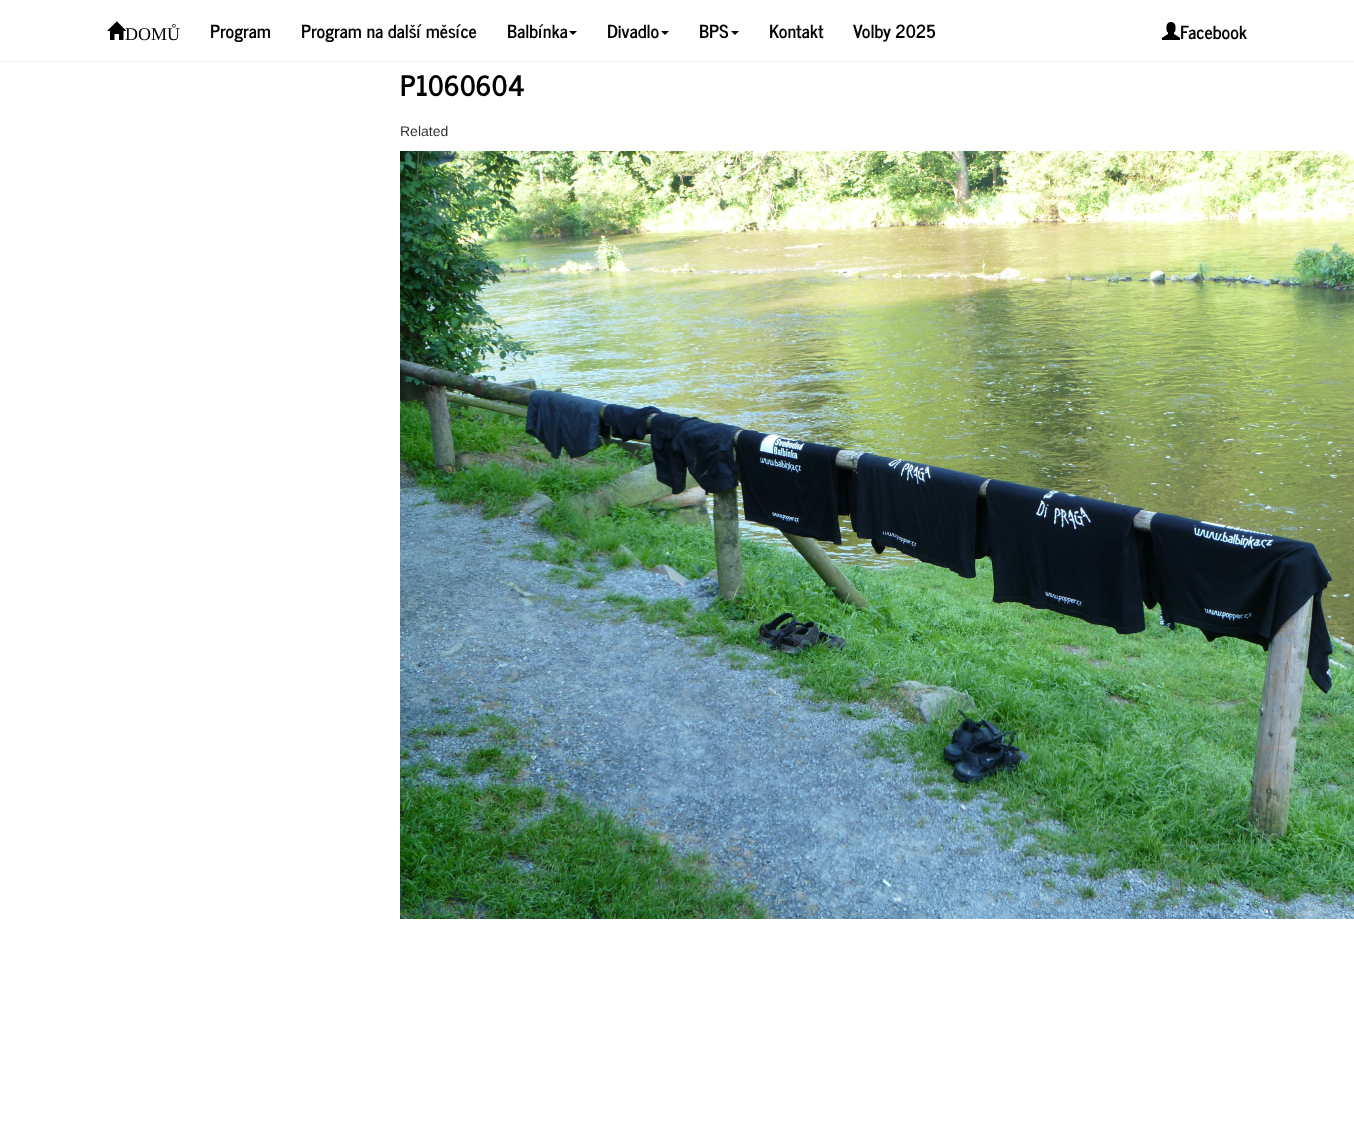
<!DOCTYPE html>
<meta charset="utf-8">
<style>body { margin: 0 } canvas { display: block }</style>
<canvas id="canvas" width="1354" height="1121"></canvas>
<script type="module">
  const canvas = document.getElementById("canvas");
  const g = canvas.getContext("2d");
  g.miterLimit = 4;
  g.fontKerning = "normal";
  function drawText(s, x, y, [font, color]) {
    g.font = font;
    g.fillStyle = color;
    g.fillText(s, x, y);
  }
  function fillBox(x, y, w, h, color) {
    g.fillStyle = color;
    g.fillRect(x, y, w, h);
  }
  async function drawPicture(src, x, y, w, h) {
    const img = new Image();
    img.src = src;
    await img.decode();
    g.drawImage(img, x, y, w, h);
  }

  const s1 = ["18px Liberation Serif", "#000000"];
  const s2 = ["bold 18px News Cycle", "#000000"];
  const s3 = ["bold 28px News Cycle", "#000000"];
  const s4 = ["14px Liberation Sans", "#333333"];

  fillBox(0, 0, 1354, 1121, "#FFFFFF");
  fillBox(0, 61, 1354, 1, "#EEEEEE");
  await drawPicture("pic1.png", 107, 21, 20, 19);
  drawText("DOMŮ", 125, 40, s1);
  drawText("Program", 210, 38, s2);
  drawText("Program na další měsíce", 301, 38, s2);
  drawText("Balbínka", 507, 38, s2);
  g.beginPath();
  g.moveTo(569, 31);
  g.lineTo(577, 31);
  g.lineTo(573, 35);
  g.closePath();
  g.fill();
  drawText("Divadlo", 607, 38, s2);
  g.beginPath();
  g.moveTo(661, 31);
  g.lineTo(669, 31);
  g.lineTo(665, 35);
  g.closePath();
  g.fill();
  drawText("BPS", 699, 38, s2);
  g.beginPath();
  g.moveTo(731, 31);
  g.lineTo(739, 31);
  g.lineTo(735, 35);
  g.closePath();
  g.fill();
  drawText("Kontakt", 769, 38, s2);
  drawText("Volby 2025", 853, 38, s2);
  await drawPicture("pic2.png", 1162, 22, 18, 18);
  drawText("Facebook", 1180, 39, s2);
  drawText("P1060604", 400, 96, s3);
  drawText("Related", 400, 136, s4);
  await drawPicture("pic3.png", 400, 151, 954, 768);
</script>
